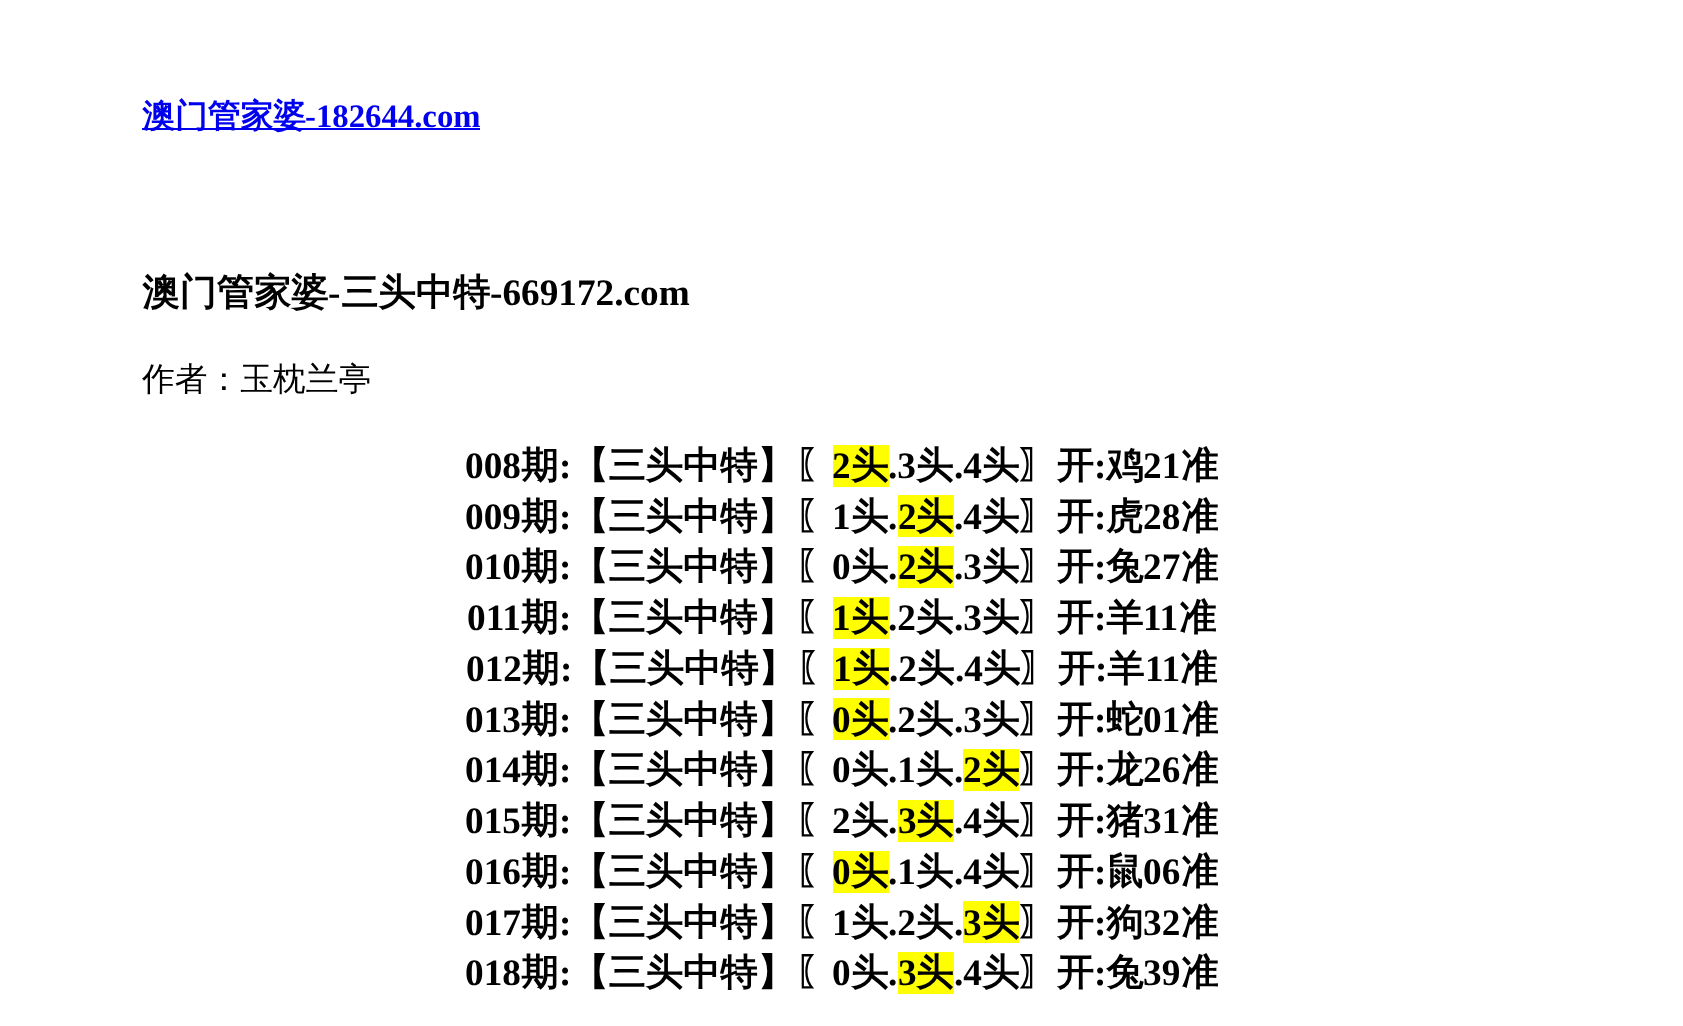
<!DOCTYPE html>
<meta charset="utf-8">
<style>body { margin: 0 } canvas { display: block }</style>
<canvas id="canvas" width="1683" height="1026"></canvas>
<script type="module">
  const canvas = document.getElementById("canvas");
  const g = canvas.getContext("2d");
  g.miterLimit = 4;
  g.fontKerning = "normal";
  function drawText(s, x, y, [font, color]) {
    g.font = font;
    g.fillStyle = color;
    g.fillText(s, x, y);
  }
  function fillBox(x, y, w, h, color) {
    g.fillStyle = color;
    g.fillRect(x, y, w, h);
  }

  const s1 = ["bold 32.75px WenQuanYi Zen Hei", "#0000EE"];
  const s2 = ["bold 32.75px Liberation Serif", "#0000EE"];
  const s3 = ["bold 37.25px WenQuanYi Zen Hei", "#000000"];
  const s4 = ["bold 37.25px Liberation Serif", "#000000"];
  const s5 = ["500 32.75px WenQuanYi Zen Hei", "#000000"];

  fillBox(0, 0, 1683, 1026, "#FFFFFF");
  fillBox(142, 128, 338, 2, "#0000EE");
  drawText("澳门管家婆", 142, 127, s1);
  drawText("-182644.com", 305, 127, s2);
  drawText("澳门管家婆", 142, 305, s3);
  drawText("-", 328, 305, s4);
  drawText("三头中特", 341, 305, s3);
  drawText("-669172.com", 490, 305, s4);
  drawText("作者：玉枕兰亭", 142, 390, s5);
  drawText("008", 465, 478, s4);
  drawText("期", 521, 478, s3);
  drawText(":", 559, 478, s4);
  drawText("【三头中特】〖", 571, 478, s3);
  fillBox(833, 445, 56, 42, "#FFFF00");
  drawText("2", 832, 478, s4);
  drawText("头", 851, 478, s3);
  drawText(".3", 888, 478, s4);
  drawText("头", 916, 478, s3);
  drawText(".4", 954, 478, s4);
  drawText("头〗开", 982, 478, s3);
  drawText(":", 1094, 478, s4);
  drawText("鸡", 1106, 478, s3);
  drawText("21", 1143, 478, s4);
  drawText("准", 1181, 478, s3);
  drawText("009", 465, 529, s4);
  drawText("期", 521, 529, s3);
  drawText(":", 559, 529, s4);
  drawText("【三头中特】〖", 571, 529, s3);
  drawText("1", 832, 529, s4);
  drawText("头", 851, 529, s3);
  drawText(".", 888, 529, s4);
  fillBox(898, 495, 56, 42, "#FFFF00");
  drawText("2", 898, 529, s4);
  drawText("头", 916, 529, s3);
  drawText(".4", 954, 529, s4);
  drawText("头〗开", 982, 529, s3);
  drawText(":", 1094, 529, s4);
  drawText("虎", 1106, 529, s3);
  drawText("28", 1143, 529, s4);
  drawText("准", 1181, 529, s3);
  drawText("010", 465, 579, s4);
  drawText("期", 521, 579, s3);
  drawText(":", 559, 579, s4);
  drawText("【三头中特】〖", 571, 579, s3);
  drawText("0", 832, 579, s4);
  drawText("头", 851, 579, s3);
  drawText(".", 888, 579, s4);
  fillBox(898, 546, 56, 42, "#FFFF00");
  drawText("2", 898, 579, s4);
  drawText("头", 916, 579, s3);
  drawText(".3", 954, 579, s4);
  drawText("头〗开", 982, 579, s3);
  drawText(":", 1094, 579, s4);
  drawText("兔", 1106, 579, s3);
  drawText("27", 1143, 579, s4);
  drawText("准", 1181, 579, s3);
  drawText("011", 467, 630, s4);
  drawText("期", 521, 630, s3);
  drawText(":", 559, 630, s4);
  drawText("【三头中特】〖", 571, 630, s3);
  fillBox(833, 597, 56, 42, "#FFFF00");
  drawText("1", 832, 630, s4);
  drawText("头", 851, 630, s3);
  drawText(".2", 888, 630, s4);
  drawText("头", 916, 630, s3);
  drawText(".3", 954, 630, s4);
  drawText("头〗开", 982, 630, s3);
  drawText(":", 1094, 630, s4);
  drawText("羊", 1106, 630, s3);
  drawText("11", 1143, 630, s4);
  drawText("准", 1179, 630, s3);
  drawText("012", 466, 681, s4);
  drawText("期", 522, 681, s3);
  drawText(":", 560, 681, s4);
  drawText("【三头中特】〖", 572, 681, s3);
  fillBox(833, 648, 56, 42, "#FFFF00");
  drawText("1", 833, 681, s4);
  drawText("头", 852, 681, s3);
  drawText(".2", 889, 681, s4);
  drawText("头", 917, 681, s3);
  drawText(".4", 955, 681, s4);
  drawText("头〗开", 983, 681, s3);
  drawText(":", 1095, 681, s4);
  drawText("羊", 1107, 681, s3);
  drawText("11", 1145, 681, s4);
  drawText("准", 1180, 681, s3);
  drawText("013", 465, 732, s4);
  drawText("期", 521, 732, s3);
  drawText(":", 559, 732, s4);
  drawText("【三头中特】〖", 571, 732, s3);
  fillBox(833, 698, 56, 42, "#FFFF00");
  drawText("0", 832, 732, s4);
  drawText("头", 851, 732, s3);
  drawText(".2", 888, 732, s4);
  drawText("头", 916, 732, s3);
  drawText(".3", 954, 732, s4);
  drawText("头〗开", 982, 732, s3);
  drawText(":", 1094, 732, s4);
  drawText("蛇", 1106, 732, s3);
  drawText("01", 1143, 732, s4);
  drawText("准", 1181, 732, s3);
  drawText("014", 465, 782, s4);
  drawText("期", 521, 782, s3);
  drawText(":", 559, 782, s4);
  drawText("【三头中特】〖", 571, 782, s3);
  drawText("0", 832, 782, s4);
  drawText("头", 851, 782, s3);
  drawText(".1", 888, 782, s4);
  drawText("头", 916, 782, s3);
  drawText(".", 954, 782, s4);
  fillBox(963, 749, 56, 42, "#FFFF00");
  drawText("2", 963, 782, s4);
  drawText("头〗开", 982, 782, s3);
  drawText(":", 1094, 782, s4);
  drawText("龙", 1106, 782, s3);
  drawText("26", 1143, 782, s4);
  drawText("准", 1181, 782, s3);
  drawText("015", 465, 833, s4);
  drawText("期", 521, 833, s3);
  drawText(":", 559, 833, s4);
  drawText("【三头中特】〖", 571, 833, s3);
  drawText("2", 832, 833, s4);
  drawText("头", 851, 833, s3);
  drawText(".", 888, 833, s4);
  fillBox(898, 800, 56, 42, "#FFFF00");
  drawText("3", 898, 833, s4);
  drawText("头", 916, 833, s3);
  drawText(".4", 954, 833, s4);
  drawText("头〗开", 982, 833, s3);
  drawText(":", 1094, 833, s4);
  drawText("猪", 1106, 833, s3);
  drawText("31", 1143, 833, s4);
  drawText("准", 1181, 833, s3);
  drawText("016", 465, 884, s4);
  drawText("期", 521, 884, s3);
  drawText(":", 559, 884, s4);
  drawText("【三头中特】〖", 571, 884, s3);
  fillBox(833, 851, 56, 42, "#FFFF00");
  drawText("0", 832, 884, s4);
  drawText("头", 851, 884, s3);
  drawText(".1", 888, 884, s4);
  drawText("头", 916, 884, s3);
  drawText(".4", 954, 884, s4);
  drawText("头〗开", 982, 884, s3);
  drawText(":", 1094, 884, s4);
  drawText("鼠", 1106, 884, s3);
  drawText("06", 1143, 884, s4);
  drawText("准", 1181, 884, s3);
  drawText("017", 465, 935, s4);
  drawText("期", 521, 935, s3);
  drawText(":", 559, 935, s4);
  drawText("【三头中特】〖", 571, 935, s3);
  drawText("1", 832, 935, s4);
  drawText("头", 851, 935, s3);
  drawText(".2", 888, 935, s4);
  drawText("头", 916, 935, s3);
  drawText(".", 954, 935, s4);
  fillBox(963, 901, 56, 42, "#FFFF00");
  drawText("3", 963, 935, s4);
  drawText("头〗开", 982, 935, s3);
  drawText(":", 1094, 935, s4);
  drawText("狗", 1106, 935, s3);
  drawText("32", 1143, 935, s4);
  drawText("准", 1181, 935, s3);
  drawText("018", 465, 985, s4);
  drawText("期", 521, 985, s3);
  drawText(":", 559, 985, s4);
  drawText("【三头中特】〖", 571, 985, s3);
  drawText("0", 832, 985, s4);
  drawText("头", 851, 985, s3);
  drawText(".", 888, 985, s4);
  fillBox(898, 952, 56, 42, "#FFFF00");
  drawText("3", 898, 985, s4);
  drawText("头", 916, 985, s3);
  drawText(".4", 954, 985, s4);
  drawText("头〗开", 982, 985, s3);
  drawText(":", 1094, 985, s4);
  drawText("兔", 1106, 985, s3);
  drawText("39", 1143, 985, s4);
  drawText("准", 1181, 985, s3);
</script>
